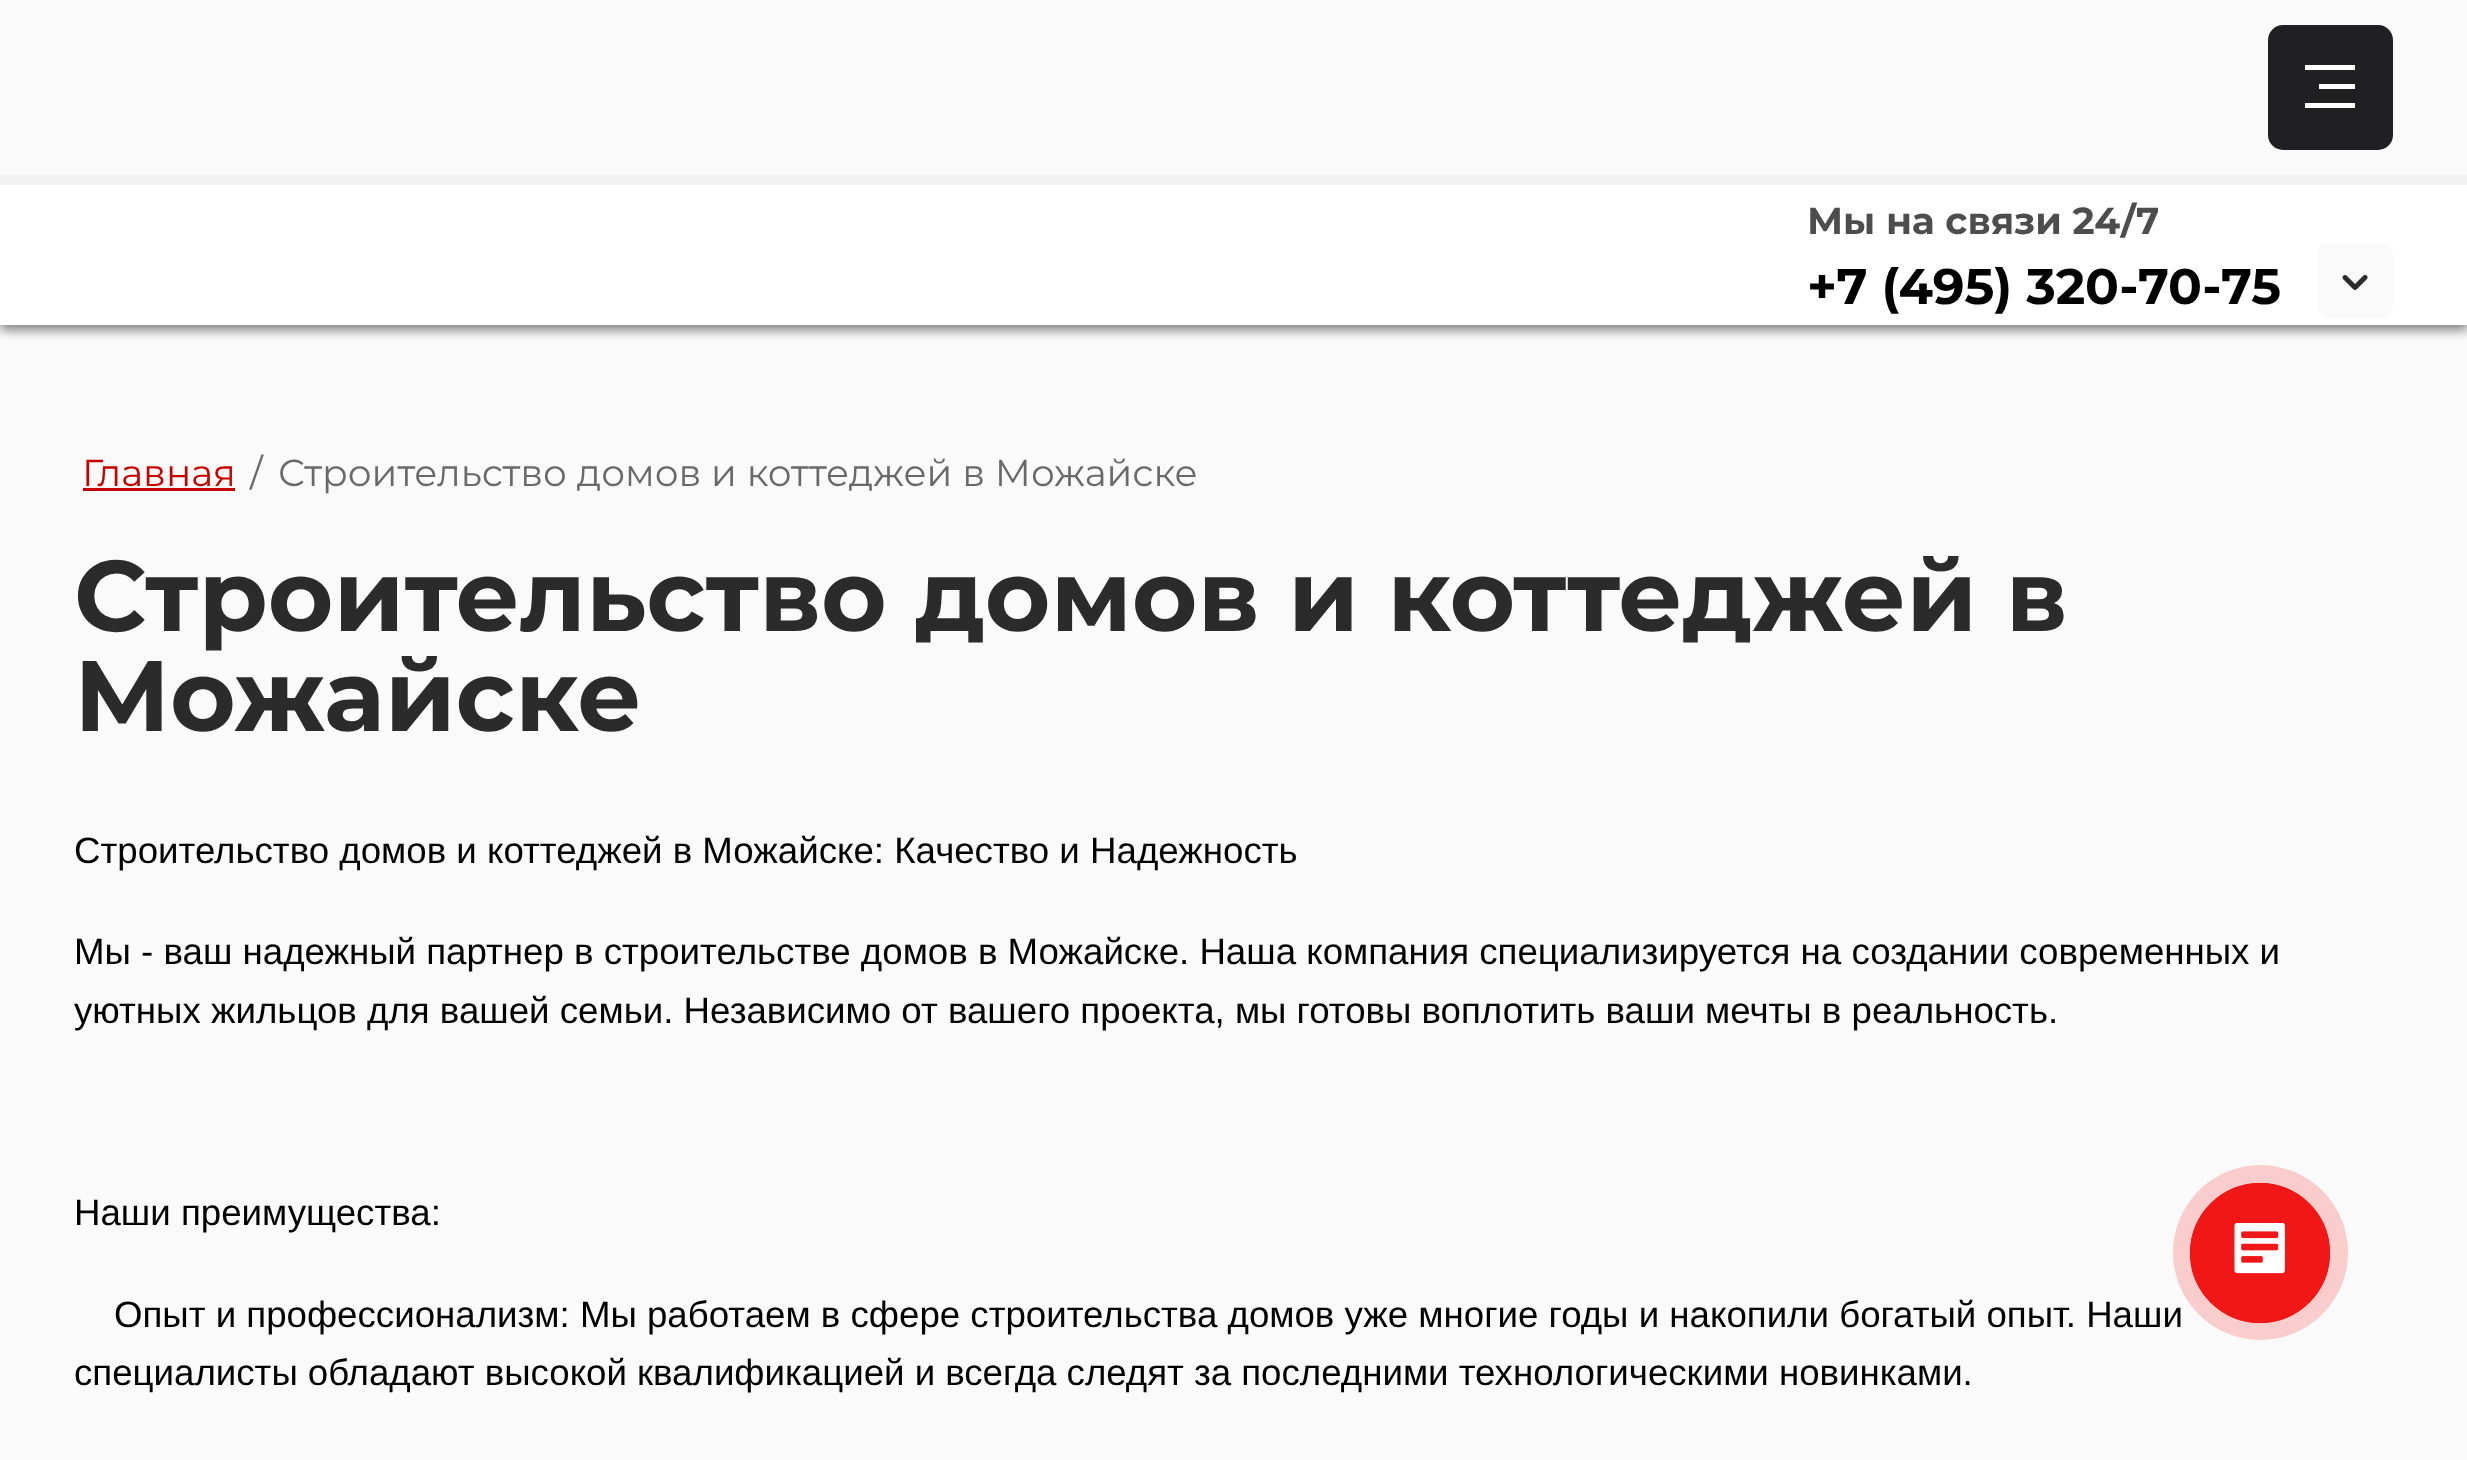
<!DOCTYPE html>
<meta charset="utf-8">
<style>body { margin: 0 } canvas { display: block }</style>
<canvas id="canvas" width="2467" height="1460"></canvas>
<script type="module">
  const canvas = document.getElementById("canvas");
  const g = canvas.getContext("2d");
  g.miterLimit = 4;
  g.fontKerning = "normal";
  function drawText(s, x, y, [font, color]) {
    g.font = font;
    g.fillStyle = color;
    g.fillText(s, x, y);
  }
  function fillBox(x, y, w, h, color) {
    g.fillStyle = color;
    g.fillRect(x, y, w, h);
  }
  function fillRounded(x, y, w, h, r, color) {
    g.fillStyle = color;
    g.beginPath();
    g.roundRect(x, y, w, h, r);
    g.fill();
  }
  async function drawPicture(src, x, y, w, h) {
    const img = new Image();
    img.src = src;
    await img.decode();
    g.drawImage(img, x, y, w, h);
  }

  const s1 = ["bold 37.5px Montserrat", "#4D4D4D"];
  const s2 = ["bold 50px Montserrat", "#000000"];
  const s3 = ["37.5px Montserrat", "#C70000"];
  const s4 = ["37.5px Montserrat", "#696969"];
  const s5 = ["bold 100px Montserrat", "#2B2B2B"];
  const s6 = ["36.67px Liberation Sans", "#000000"];

  fillBox(0, 0, 2467, 1460, "#FFFFFF");
  fillBox(0, 325, 2467, 1135, "#FAFAFA");
  g.save();
  g.beginPath();
  g.rect(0, 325, 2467, 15);
  g.clip();
  g.fillStyle = "rgba(0, 0, 0, 0.5)";
  g.filter = "blur(6px)";
  g.beginPath();
  g.rect(0, 5, 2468, 325);
  g.fill();
  g.filter = "none";
  g.restore();
  g.fillStyle = "#F2F2F2";
  g.beginPath();
  g.moveTo(0, 175);
  g.lineTo(0, 185);
  g.lineTo(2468, 185);
  g.lineTo(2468, 10);
  g.lineTo(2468, 175);
  g.closePath();
  g.fill();
  fillBox(0, 0, 2467, 175, "#FAFAFA");
  fillRounded(2268, 25, 125, 125, 15, "#202022");
  g.fillStyle = "#FFFFFE";
  g.beginPath();
  g.moveTo(2305, 108);
  g.lineTo(2305, 103);
  g.lineTo(2355, 103);
  g.lineTo(2355, 108);
  g.closePath();
  g.moveTo(2319, 84);
  g.lineTo(2355, 84);
  g.lineTo(2355, 89);
  g.lineTo(2319, 89);
  g.closePath();
  g.moveTo(2305, 65);
  g.lineTo(2355, 65);
  g.lineTo(2355, 70);
  g.lineTo(2305, 70);
  g.closePath();
  g.fill("evenodd");
  drawText("Мы на связи 24/7", 1807, 234, s1);
  drawText("+7 (495) 320-70-75", 1807, 304, s2);
  fillRounded(2318, 243, 75, 75, 10, "#FAFAFA");
  await drawPicture("pic1.png", 2342, 275, 26, 15);
  drawText("Главная", 82, 486, s3);
  fillBox(83, 488, 152, 3, "#C70000");
  drawText("/", 250, 486, s4);
  drawText("Строительство домов и коттеджей в Можайске", 278, 486, s4);
  drawText("Строительство домов и коттеджей в", 74, 631, s5);
  drawText("Можайске", 74, 731, s5);
  drawText("Строительство домов и коттеджей в Можайске: Качество и Надежность", 74, 863, s6);
  drawText("Мы - ваш надежный партнер в строительстве домов в Можайске. Наша компания специализируется на создании современных и", 74, 964, s6);
  drawText("уютных жильцов для вашей семьи. Независимо от вашего проекта, мы готовы воплотить ваши мечты в реальность.", 74, 1023, s6);
  drawText("Наши преимущества:", 74, 1225, s6);
  drawText("Опыт и профессионализм: Мы работаем в сфере строительства домов уже многие годы и накопили богатый опыт. Наши", 114, 1327, s6);
  g.wordSpacing = "-0.1px";
  drawText("специалисты обладают высокой квалификацией и всегда следят за последними технологическими новинками.", 74, 1385, s6);
  g.fillStyle = "#F8CDCC";
  g.beginPath();
  g.arc(2260.5, 1252.5, 87.5, 0, Math.PI * 2);
  g.fill();
  g.beginPath();
  g.arc(2260, 1253, 69, 0, Math.PI * 2);
  g.strokeStyle = "#F11716";
  g.lineWidth = 2;
  g.stroke();
  g.fillStyle = "#F11716";
  g.beginPath();
  g.arc(2260, 1253, 70, 0, Math.PI * 2);
  g.fill();
  await drawPicture("pic2.png", 2234, 1223, 51, 51);
</script>
